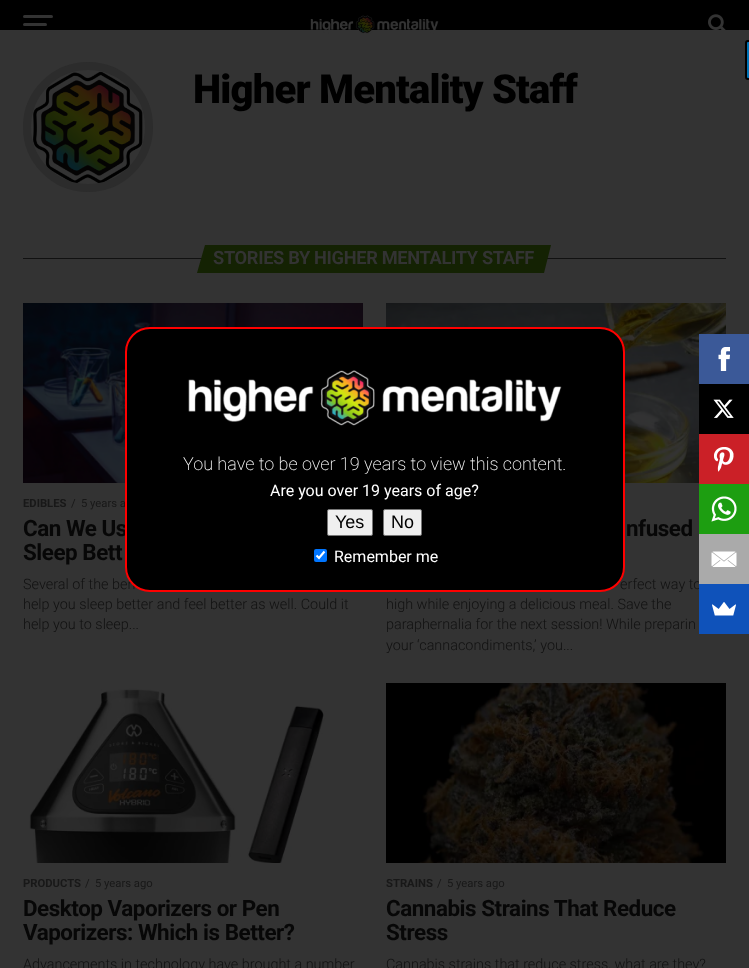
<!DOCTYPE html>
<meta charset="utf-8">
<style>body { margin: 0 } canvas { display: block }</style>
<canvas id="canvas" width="749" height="968"></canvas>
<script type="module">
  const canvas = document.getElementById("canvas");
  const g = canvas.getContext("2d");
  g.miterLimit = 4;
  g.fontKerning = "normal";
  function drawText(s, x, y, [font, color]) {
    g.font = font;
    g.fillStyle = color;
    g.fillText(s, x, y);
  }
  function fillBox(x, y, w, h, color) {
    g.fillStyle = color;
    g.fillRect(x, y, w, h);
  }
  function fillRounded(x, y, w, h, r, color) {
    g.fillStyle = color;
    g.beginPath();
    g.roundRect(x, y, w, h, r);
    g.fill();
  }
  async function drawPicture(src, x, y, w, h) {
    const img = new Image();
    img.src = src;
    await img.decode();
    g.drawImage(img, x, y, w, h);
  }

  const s1 = ["900 40px Roboto", "#000000"];
  const s2 = ["bold 18.25px Roboto", "#333333"];
  const s3 = ["bold 11.25px Roboto", "#181818"];
  const s4 = ["11.25px Roboto", "#181818"];
  const s5 = ["bold 22.4px Roboto", "#070707"];
  const s6 = ["300 14.4px Roboto", "#111111"];
  const s7 = ["200 18px Roboto", "#FFFFFF"];
  const s8 = ["16px Roboto", "#FFFFFF"];
  const s9 = ["18px Liberation Sans", "#000000"];

  fillBox(0, 0, 749, 968, "#333333");
  g.fillStyle = "#0073B7";
  g.beginPath();
  g.moveTo(748, 41);
  g.lineTo(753, 41);
  g.lineTo(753, 79);
  g.lineTo(748, 79);
  g.bezierCurveTo(747, 79, 746, 78, 746, 77);
  g.lineTo(746, 43);
  g.bezierCurveTo(746, 42, 747, 41, 748, 41);
  g.closePath();
  g.fill();
  g.strokeStyle = "#000000";
  g.lineWidth = 2;
  g.stroke();
  fillBox(0, 0, 749, 30, "#000000");
  fillRounded(23, 15, 30, 3, 1.5, "#333333");
  fillRounded(23, 23, 24, 3, 1.5, "#333333");
  await drawPicture("pic1.png", 310, 15, 129, 19);
  await drawPicture("pic2.png", 708, 14, 18, 16);
  g.beginPath();
  g.arc(88, 127, 61, 0, Math.PI * 2);
  g.strokeStyle = "#2C2C2C";
  g.lineWidth = 8;
  g.stroke();
  await drawPicture("pic3.png", 33, 71, 110, 112);
  g.letterSpacing = "-0.8px";
  drawText("Higher Mentality Staff", 193, 103, s1);
  fillBox(23, 258, 703, 1, "#111111");
  g.fillStyle = "#142203";
  g.beginPath();
  g.moveTo(205, 245);
  g.lineTo(551, 245);
  g.lineTo(544, 273);
  g.lineTo(197, 273);
  g.closePath();
  g.fill();
  g.letterSpacing = "-0.35px";
  drawText("STORIES BY HIGHER MENTALITY STAFF", 213, 264, s2);
  await drawPicture("pic4.png", 23, 303, 340, 180);
  g.letterSpacing = "0px";
  drawText("EDIBLES", 23, 507, s3);
  drawText("/", 71, 507, s4);
  drawText("5 years a", 81, 507, s4);
  g.letterSpacing = "-0.45px";
  drawText("Can We Us", 23, 536, s5);
  drawText("Sleep Bett", 23, 560, s5);
  g.letterSpacing = "0px";
  drawText("Several of the ben", 23, 589, s6);
  drawText("help you sleep better and feel better as well. Could it", 23, 609, s6);
  drawText("help you to sleep...", 23, 629, s6);
  await drawPicture("pic5.png", 386, 303, 340, 180);
  g.letterSpacing = "-0.45px";
  drawText("nfused", 626, 536, s5);
  g.letterSpacing = "0px";
  drawText("erfect way to", 620, 589, s6);
  drawText("high while enjoying a delicious meal. Save the", 386, 609, s6);
  drawText("paraphernalia for the next session! While preparin", 386, 629, s6);
  drawText("your ‘cannacondiments,’ you...", 386, 650, s6);
  await drawPicture("pic6.png", 23, 683, 340, 180);
  drawText("PRODUCTS", 23, 887, s3);
  drawText("/", 85, 887, s4);
  drawText("5 years ago", 95, 887, s4);
  g.letterSpacing = "-0.45px";
  drawText("Desktop Vaporizers or Pen", 23, 916, s5);
  drawText("Vaporizers: Which is Better?", 23, 940, s5);
  g.letterSpacing = "0px";
  drawText("Advancements in technology have brought a number", 23, 969, s6);
  fillBox(386, 683, 340, 180, "#000000");
  await drawPicture("pic7.png", 418, 683, 286, 180);
  drawText("STRAINS", 386, 887, s3);
  drawText("/", 437, 887, s4);
  drawText("5 years ago", 447, 887, s4);
  g.letterSpacing = "-0.45px";
  drawText("Cannabis Strains That Reduce", 386, 916, s5);
  drawText("Stress", 386, 940, s5);
  g.letterSpacing = "0px";
  drawText("Cannabis strains that reduce stress, what are they?", 386, 969, s6);
  fillBox(699, 334, 50, 50, "#3B5998");
  await drawPicture("pic8.png", 718, 347, 12, 24);
  fillBox(699, 384, 50, 50, "#000000");
  await drawPicture("pic9.png", 713, 399, 21, 19);
  fillBox(699, 434, 50, 50, "#CB2027");
  await drawPicture("pic10.png", 714, 447, 20, 25);
  fillBox(699, 484, 50, 50, "#1D9E11");
  await drawPicture("pic11.png", 711, 496, 26, 26);
  fillBox(699, 534, 50, 50, "#AAAAAA");
  await drawPicture("pic12.png", 711, 551, 26, 16);
  fillBox(699, 584, 50, 50, "#0F52BA");
  await drawPicture("pic13.png", 712, 602, 24, 14);
  g.fillStyle = "#000000";
  g.beginPath();
  g.roundRect(126, 328, 498, 263, 24);
  g.fill();
  g.strokeStyle = "#FF0000";
  g.lineWidth = 2;
  g.stroke();
  await drawPicture("pic14.png", 188, 370, 374, 56);
  drawText("You have to be over 19 years to view this content.", 183, 470, s7);
  drawText("Are you over 19 years of age?", 270, 496, s8);
  g.fillStyle = "#EFEFEF";
  g.beginPath();
  g.roundRect(327.5, 509.5, 45, 26, 1.5);
  g.fill();
  g.strokeStyle = "#767676";
  g.lineWidth = 1;
  g.stroke();
  drawText("Yes", 335, 528, s9);
  g.fillStyle = "#EFEFEF";
  g.beginPath();
  g.roundRect(383.5, 509.5, 38, 26, 1.5);
  g.fill();
  g.stroke();
  drawText("No", 391, 528, s9);
  fillRounded(314, 549, 13, 13, 2, "#0075FF");
  g.beginPath();
  g.moveTo(316.5, 555.5);
  g.lineTo(319, 558);
  g.lineTo(324.5, 551.5);
  g.strokeStyle = "#FFFFFF";
  g.lineWidth = 2.1;
  g.stroke();
  drawText("Remember me", 334, 562, s8);
</script>
